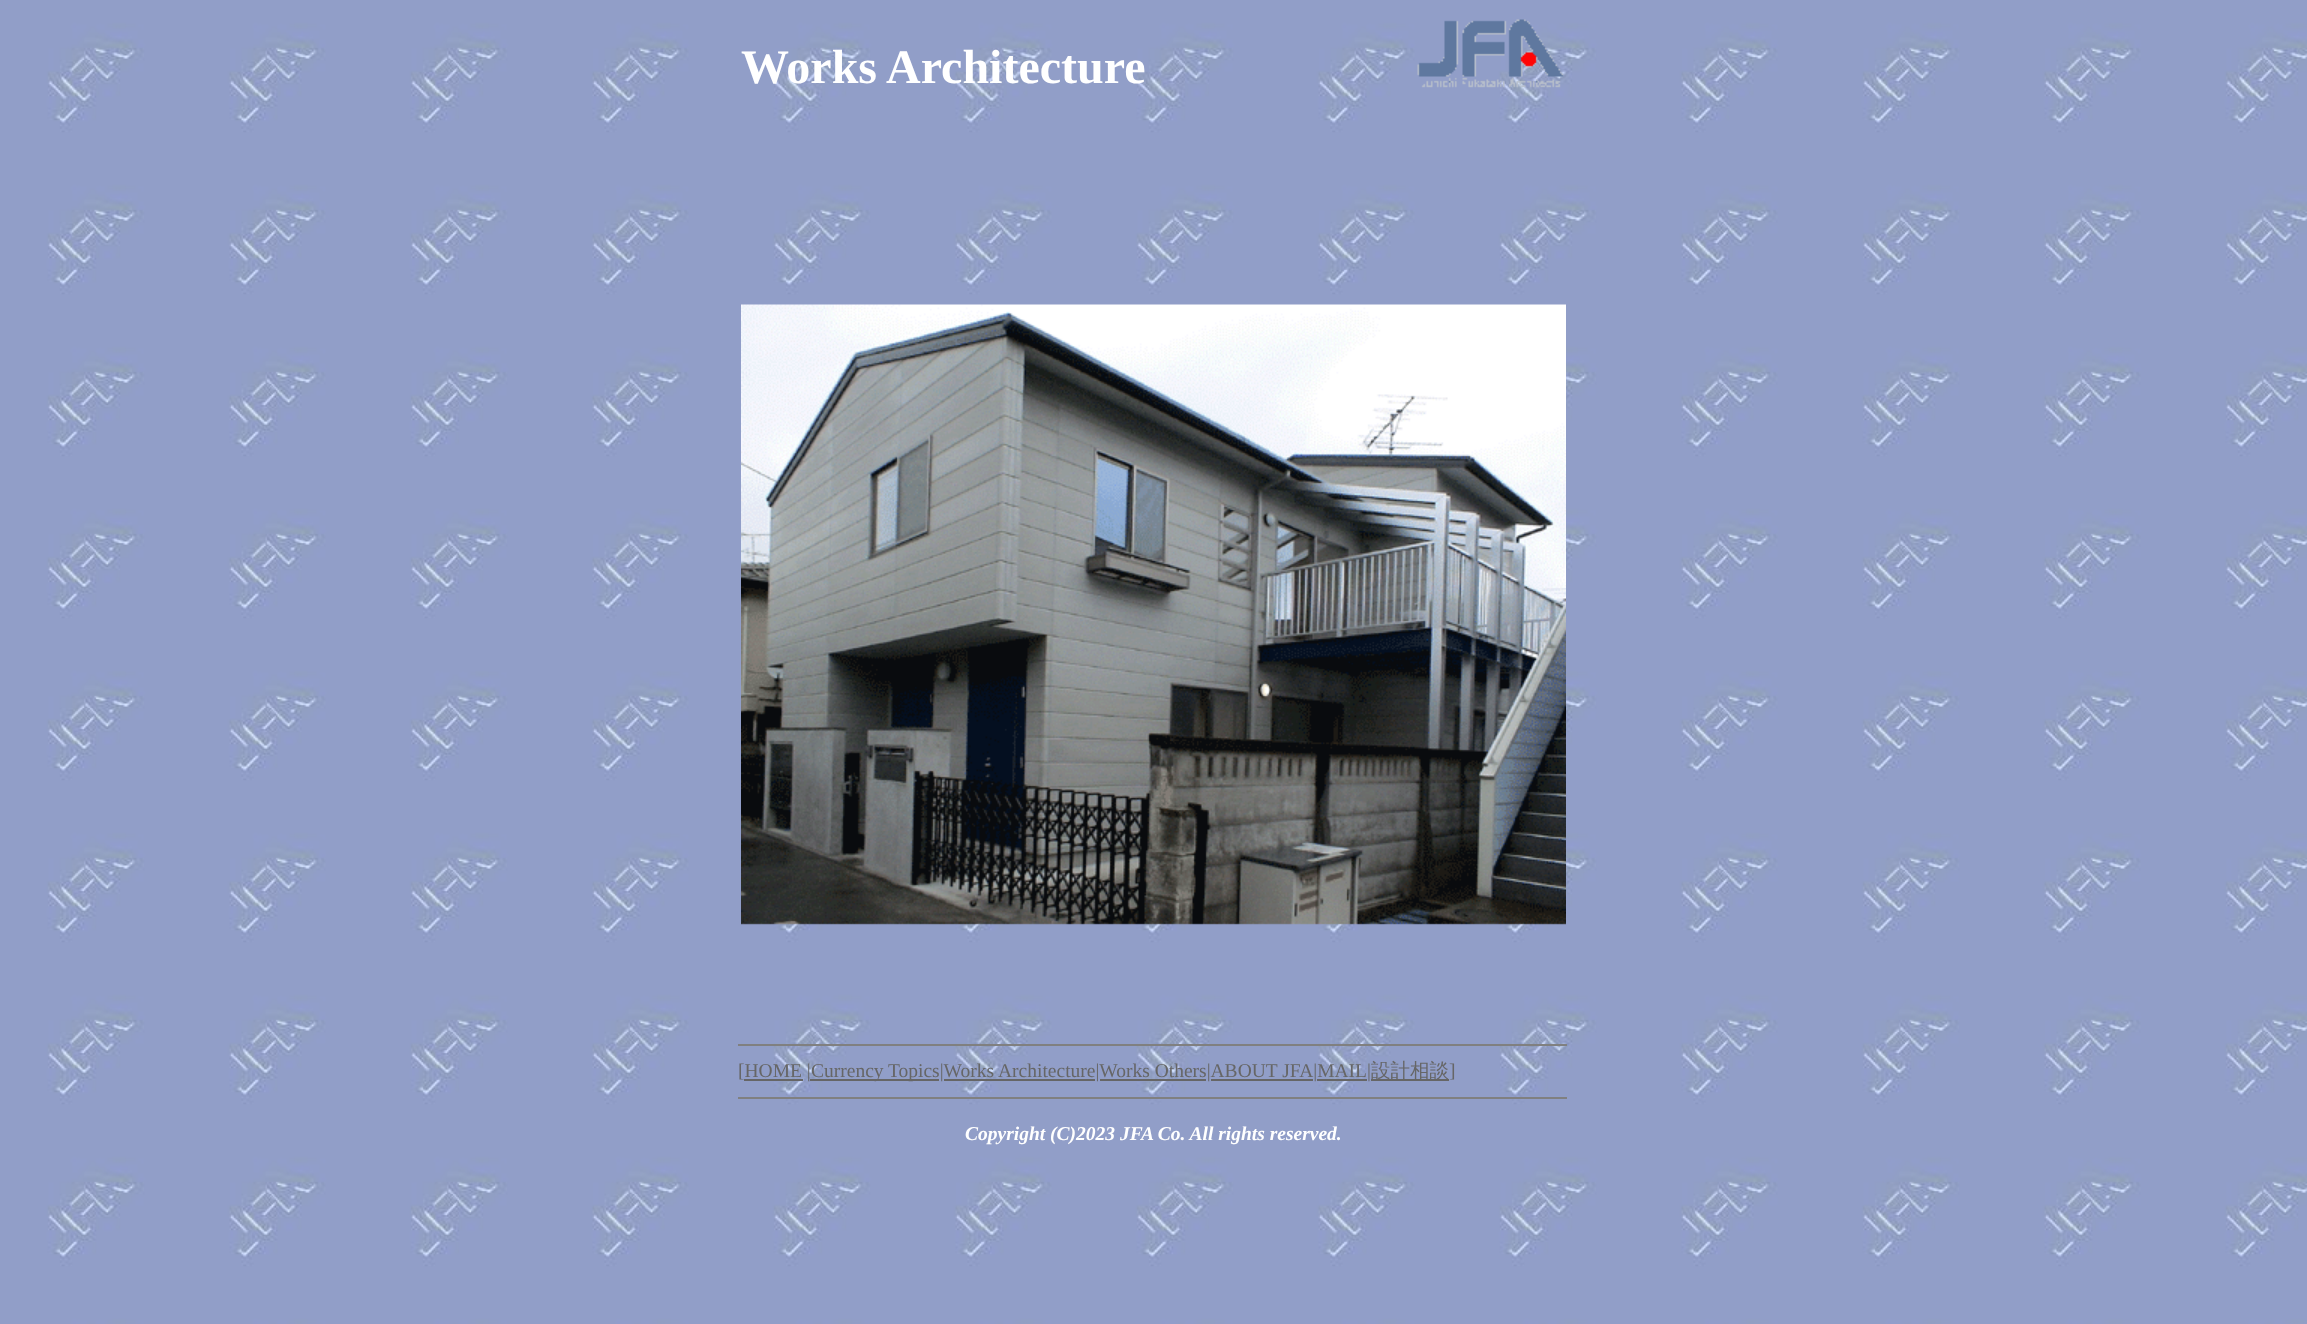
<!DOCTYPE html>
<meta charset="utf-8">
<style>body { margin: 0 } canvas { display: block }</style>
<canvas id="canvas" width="2307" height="1324"></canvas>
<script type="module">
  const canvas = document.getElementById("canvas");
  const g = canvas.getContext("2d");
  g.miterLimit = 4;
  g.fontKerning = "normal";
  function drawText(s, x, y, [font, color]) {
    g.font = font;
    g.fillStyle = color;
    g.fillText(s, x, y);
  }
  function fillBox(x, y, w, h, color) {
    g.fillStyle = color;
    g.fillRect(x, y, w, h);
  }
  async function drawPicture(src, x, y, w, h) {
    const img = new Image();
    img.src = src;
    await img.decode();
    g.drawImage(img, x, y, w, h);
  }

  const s1 = ["bold 48px Liberation Serif", "#FFFFFF"];
  const s2 = ["19.5px Liberation Serif", "#666666"];
  const s3 = ["500 19.5px WenQuanYi Zen Hei", "#666666"];
  const s4 = ["italic bold 19.5px Liberation Serif", "#FFFFFF"];

  fillBox(0, 0, 2307, 1324, "#FFFFFF");
  await drawPicture("pic1.png", 0, 0, 2307, 1324);
  drawText("Works", 741, 83, s1);
  drawText("Architecture", 886, 83, s1);
  await drawPicture("pic2.png", 1417, 19, 147, 69);
  await drawPicture("pic3.png", 741, 304, 825, 621);
  fillBox(738, 1044, 829, 2, "#808080");
  drawText("[HOME |", 738, 1077, s2);
  fillBox(744, 1079, 59, 2, "#666666");
  fillBox(810, 1079, 129, 2, "#666666");
  drawText("Currency", 811, 1077, s2);
  drawText("Topics|Works", 888, 1077, s2);
  fillBox(944, 1079, 151, 2, "#666666");
  drawText("Architecture|Works Others|ABOUT JFA|MAIL|", 998, 1077, s2);
  fillBox(1100, 1079, 106, 2, "#666666");
  fillBox(1211, 1079, 102, 2, "#666666");
  fillBox(1317, 1079, 50, 2, "#666666");
  fillBox(1371, 1079, 78, 2, "#666666");
  drawText("設計相談", 1371, 1077, s3);
  drawText("]", 1449, 1077, s2);
  fillBox(738, 1097, 829, 2, "#808080");
  drawText("Copyright (C)2023 JFA Co. All rights reserved.", 965, 1140, s4);
</script>
